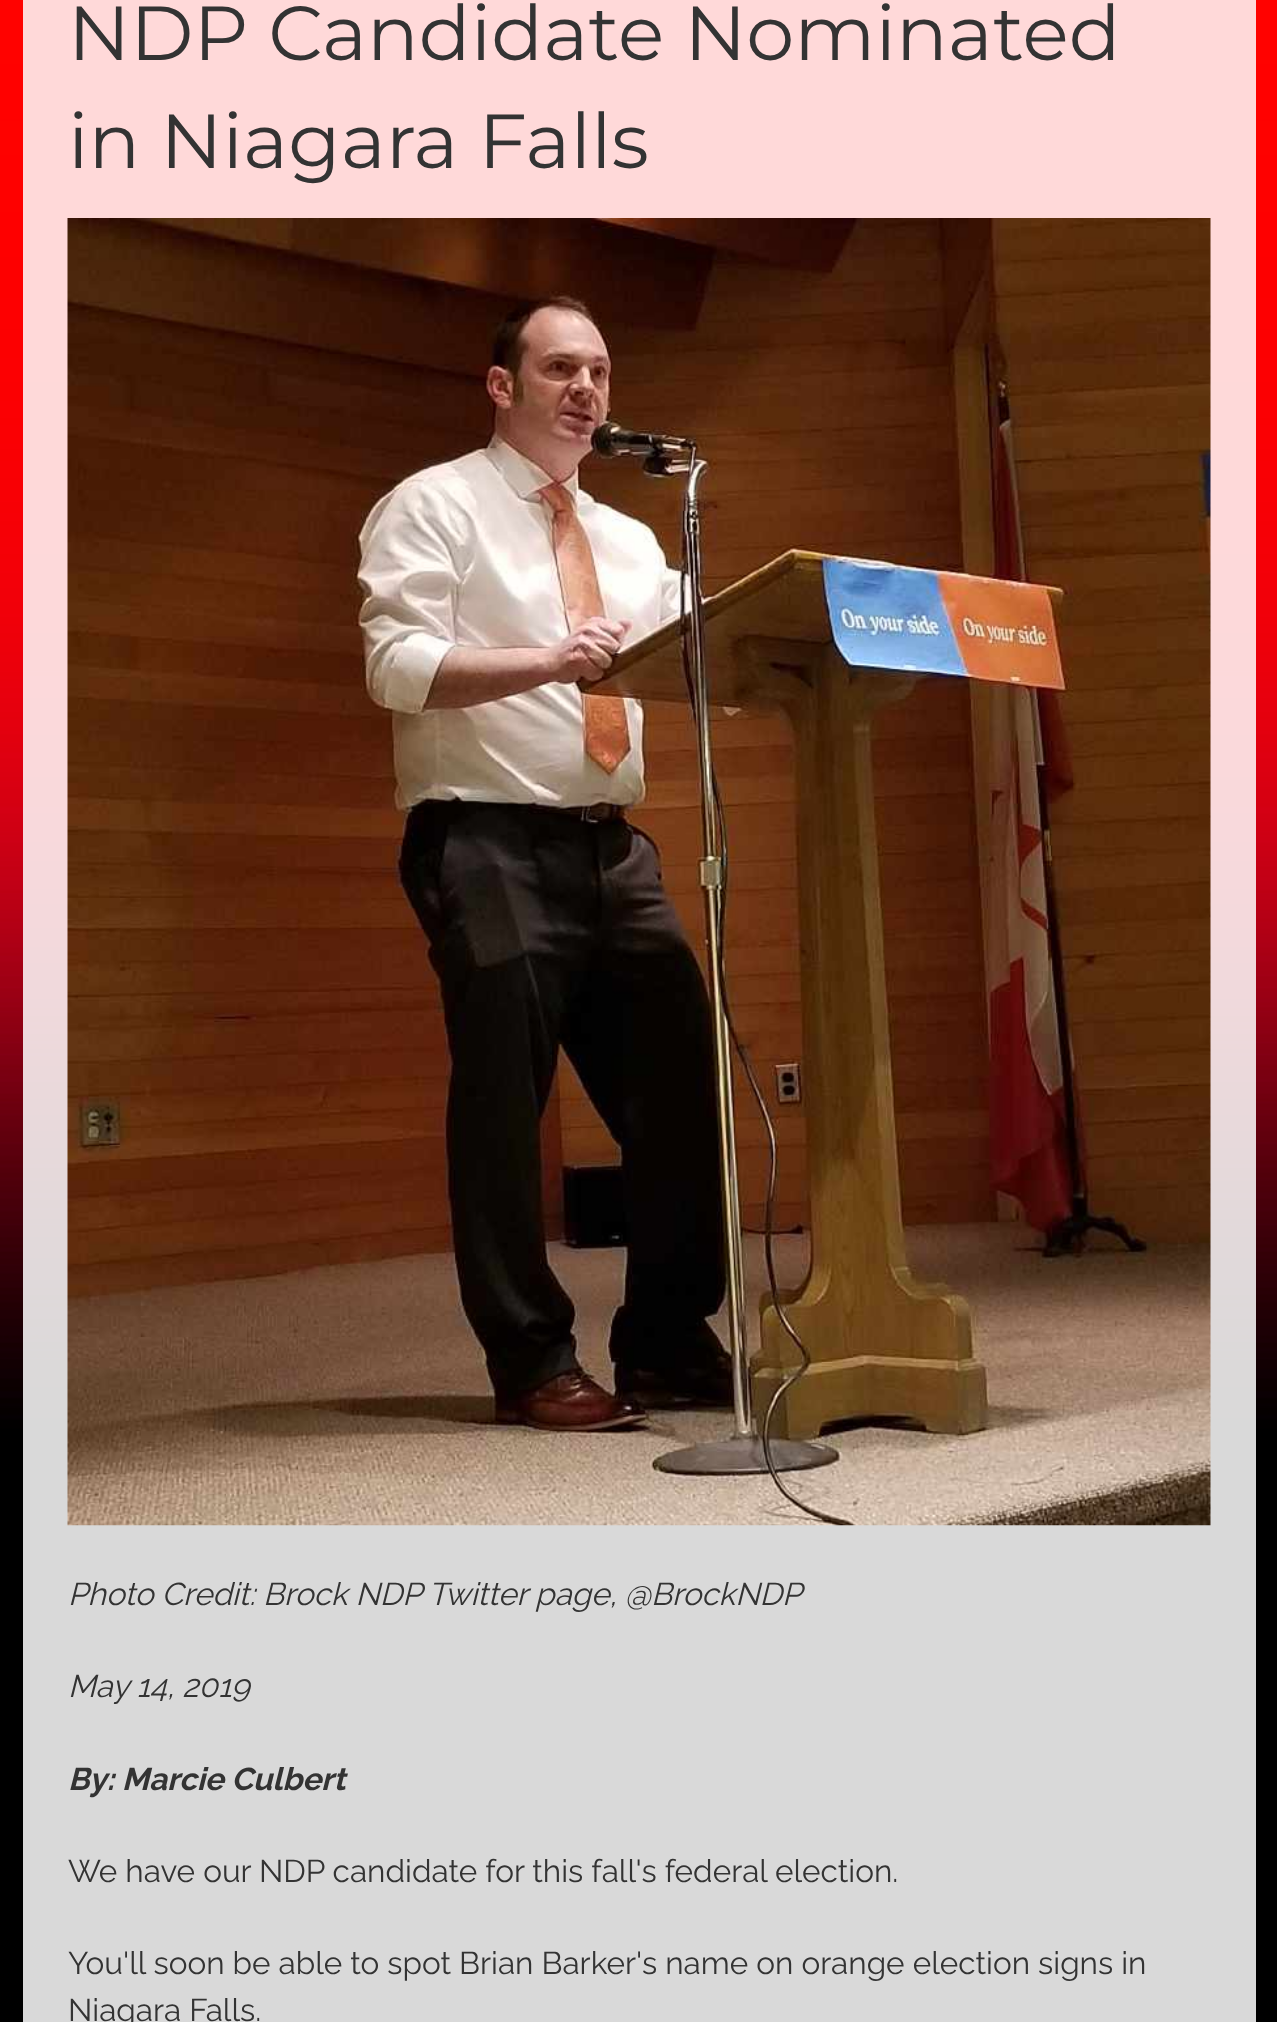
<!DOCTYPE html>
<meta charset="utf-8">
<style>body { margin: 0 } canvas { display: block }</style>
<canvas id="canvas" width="1277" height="2022"></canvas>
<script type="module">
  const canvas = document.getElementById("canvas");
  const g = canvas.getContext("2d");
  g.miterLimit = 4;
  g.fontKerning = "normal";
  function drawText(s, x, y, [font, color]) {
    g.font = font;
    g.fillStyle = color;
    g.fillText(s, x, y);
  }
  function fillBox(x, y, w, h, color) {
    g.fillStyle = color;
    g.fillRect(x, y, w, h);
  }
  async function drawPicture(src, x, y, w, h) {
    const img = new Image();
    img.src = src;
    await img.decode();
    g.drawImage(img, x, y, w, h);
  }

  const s1 = ["76.5px Montserrat", "#333333"];
  const s2 = ["italic 31.5px Raleway", "#333333"];
  const s3 = ["italic bold 31.5px Raleway", "#333333"];
  const s4 = ["31.5px Raleway", "#333333"];

  fillBox(0, 0, 1277, 2022, "#FFFFFF");
  await drawPicture("pic1.png", 0, 0, 1277, 2022);
  drawText("NDP Candidate Nominated", 68, 60, s1);
  drawText("in Niagara Falls", 68, 168, s1);
  await drawPicture("pic2.png", 67, 218, 1144, 1308);
  drawText("Photo Credit: Brock NDP Twitter page, @BrockNDP", 68, 1605, s2);
  drawText("May 14, 2019", 68, 1697, s2);
  drawText("By: Marcie Culbert", 68, 1790, s3);
  drawText("We have our NDP candidate for this fall's federal election.", 68, 1882, s4);
  drawText("You'll soon be able to spot Brian Barker's name on orange election signs in", 68, 1974, s4);
  drawText("Niagara Falls.", 68, 2021, s4);
</script>
